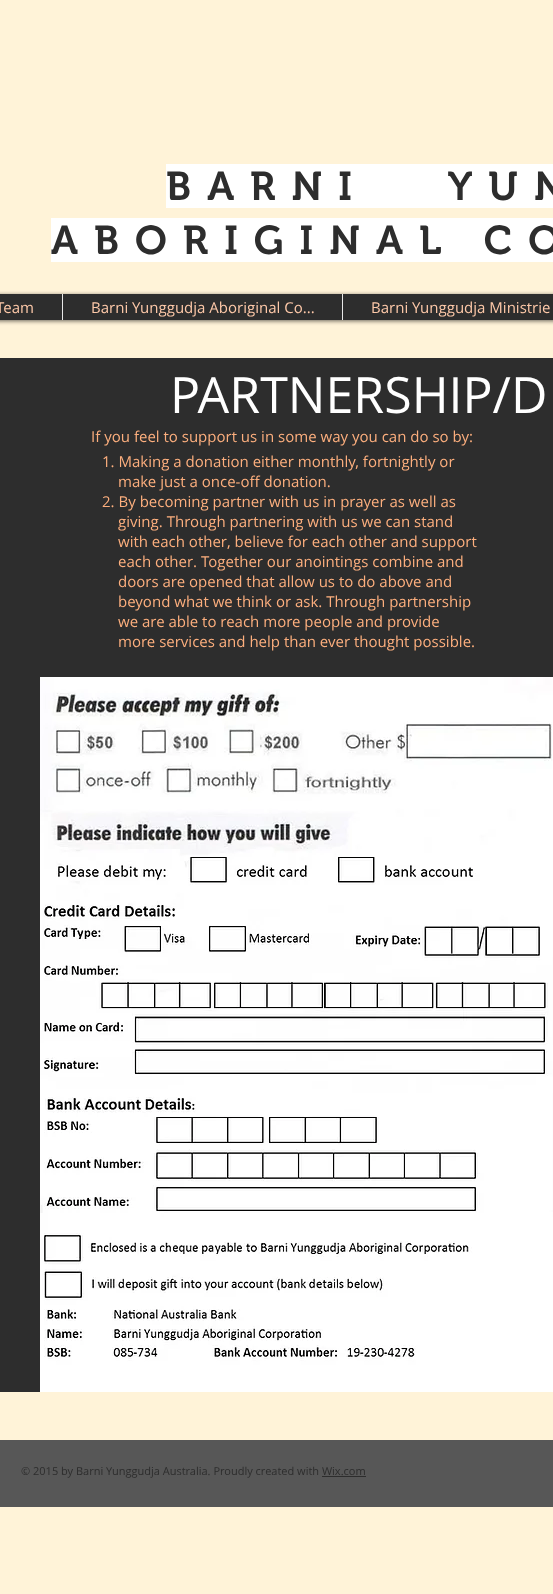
<!DOCTYPE html>
<meta charset="utf-8">
<style>body { margin: 0 } canvas { display: block }</style>
<canvas id="canvas" width="553" height="1594"></canvas>
<script type="module">
  const canvas = document.getElementById("canvas");
  const g = canvas.getContext("2d");
  g.miterLimit = 4;
  g.fontKerning = "normal";
  function drawText(s, x, y, [font, color]) {
    g.font = font;
    g.fillStyle = color;
    g.fillText(s, x, y);
  }
  function fillBox(x, y, w, h, color) {
    g.fillStyle = color;
    g.fillRect(x, y, w, h);
  }
  async function drawPicture(src, x, y, w, h) {
    const img = new Image();
    img.src = src;
    await img.decode();
    g.drawImage(img, x, y, w, h);
  }

  const s1 = ["600 40px 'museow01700'", "#2D2D2D"];
  const s2 = ["15px Open Sans", "#FEC9A9"];
  const s3 = ["50px Open Sans", "#FFFFFF"];
  const s4 = ["15px Open Sans", "#FDAF7E"];
  const s5 = ["11px Open Sans", "#2D2D2D"];

  fillBox(0, 0, 553, 1594, "#FFF3D8");
  fillBox(166, 164, 387, 44, "#FFFFFF");
  g.letterSpacing = "16px";
  drawText("BARNI   YUN", 166, 200, s1);
  fillBox(51, 218, 502, 44, "#FFFFFF");
  drawText("ABORIGINAL CO", 51, 254, s1);
  g.fillStyle = "rgba(0, 0, 0, 0.6)";
  g.filter = "blur(2px)";
  g.beginPath();
  g.roundRect(-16, 295, 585, 26, 10);
  g.fill();
  g.filter = "none";
  fillBox(0, 294, 553, 26, "#2D2D2D");
  g.letterSpacing = "0px";
  drawText("Team", -4, 313, s2);
  fillBox(62, 294, 1, 26, "#E8E8E8");
  drawText("Barni Yunggudja Aboriginal Co...", 91, 313, s2);
  fillBox(342, 294, 1, 26, "#E8E8E8");
  drawText("Barni Yunggudja Ministrie", 371, 313, s2);
  fillBox(0, 358, 553, 1034, "#2D2D2D");
  drawText("PARTNERSHIP/D", 170, 413, s3);
  drawText("If you feel to support us in some way you can do so by:", 91, 442, s4);
  drawText("1. Making a donation either monthly, fortnightly or", 102, 467, s4);
  drawText("make just a once-off donation.", 118, 487, s4);
  drawText("2. By becoming partner with us in prayer as well as", 102, 507, s4);
  drawText("giving. Through partnering with us we can stand", 118, 527, s4);
  drawText("with each other, believe for each other and support", 118, 547, s4);
  drawText("each other. Together our anointings combine and", 118, 567, s4);
  drawText("doors are opened that allow us to do above and", 118, 587, s4);
  drawText("beyond what we think or ask. Through partnership", 118, 607, s4);
  drawText("we are able to reach more people and provide", 118, 627, s4);
  drawText("more services and help than ever thought possible.", 118, 647, s4);
  await drawPicture("pic1.png", 40, 677, 513, 715);
  fillBox(0, 1440, 553, 67, "#575757");
  drawText("© 2015 by Barni Yunggudja Australia. Proudly created with Wix.com", 21, 1475, s5);
  fillBox(322, 1476, 44, 1, "#2D2D2D");
</script>
